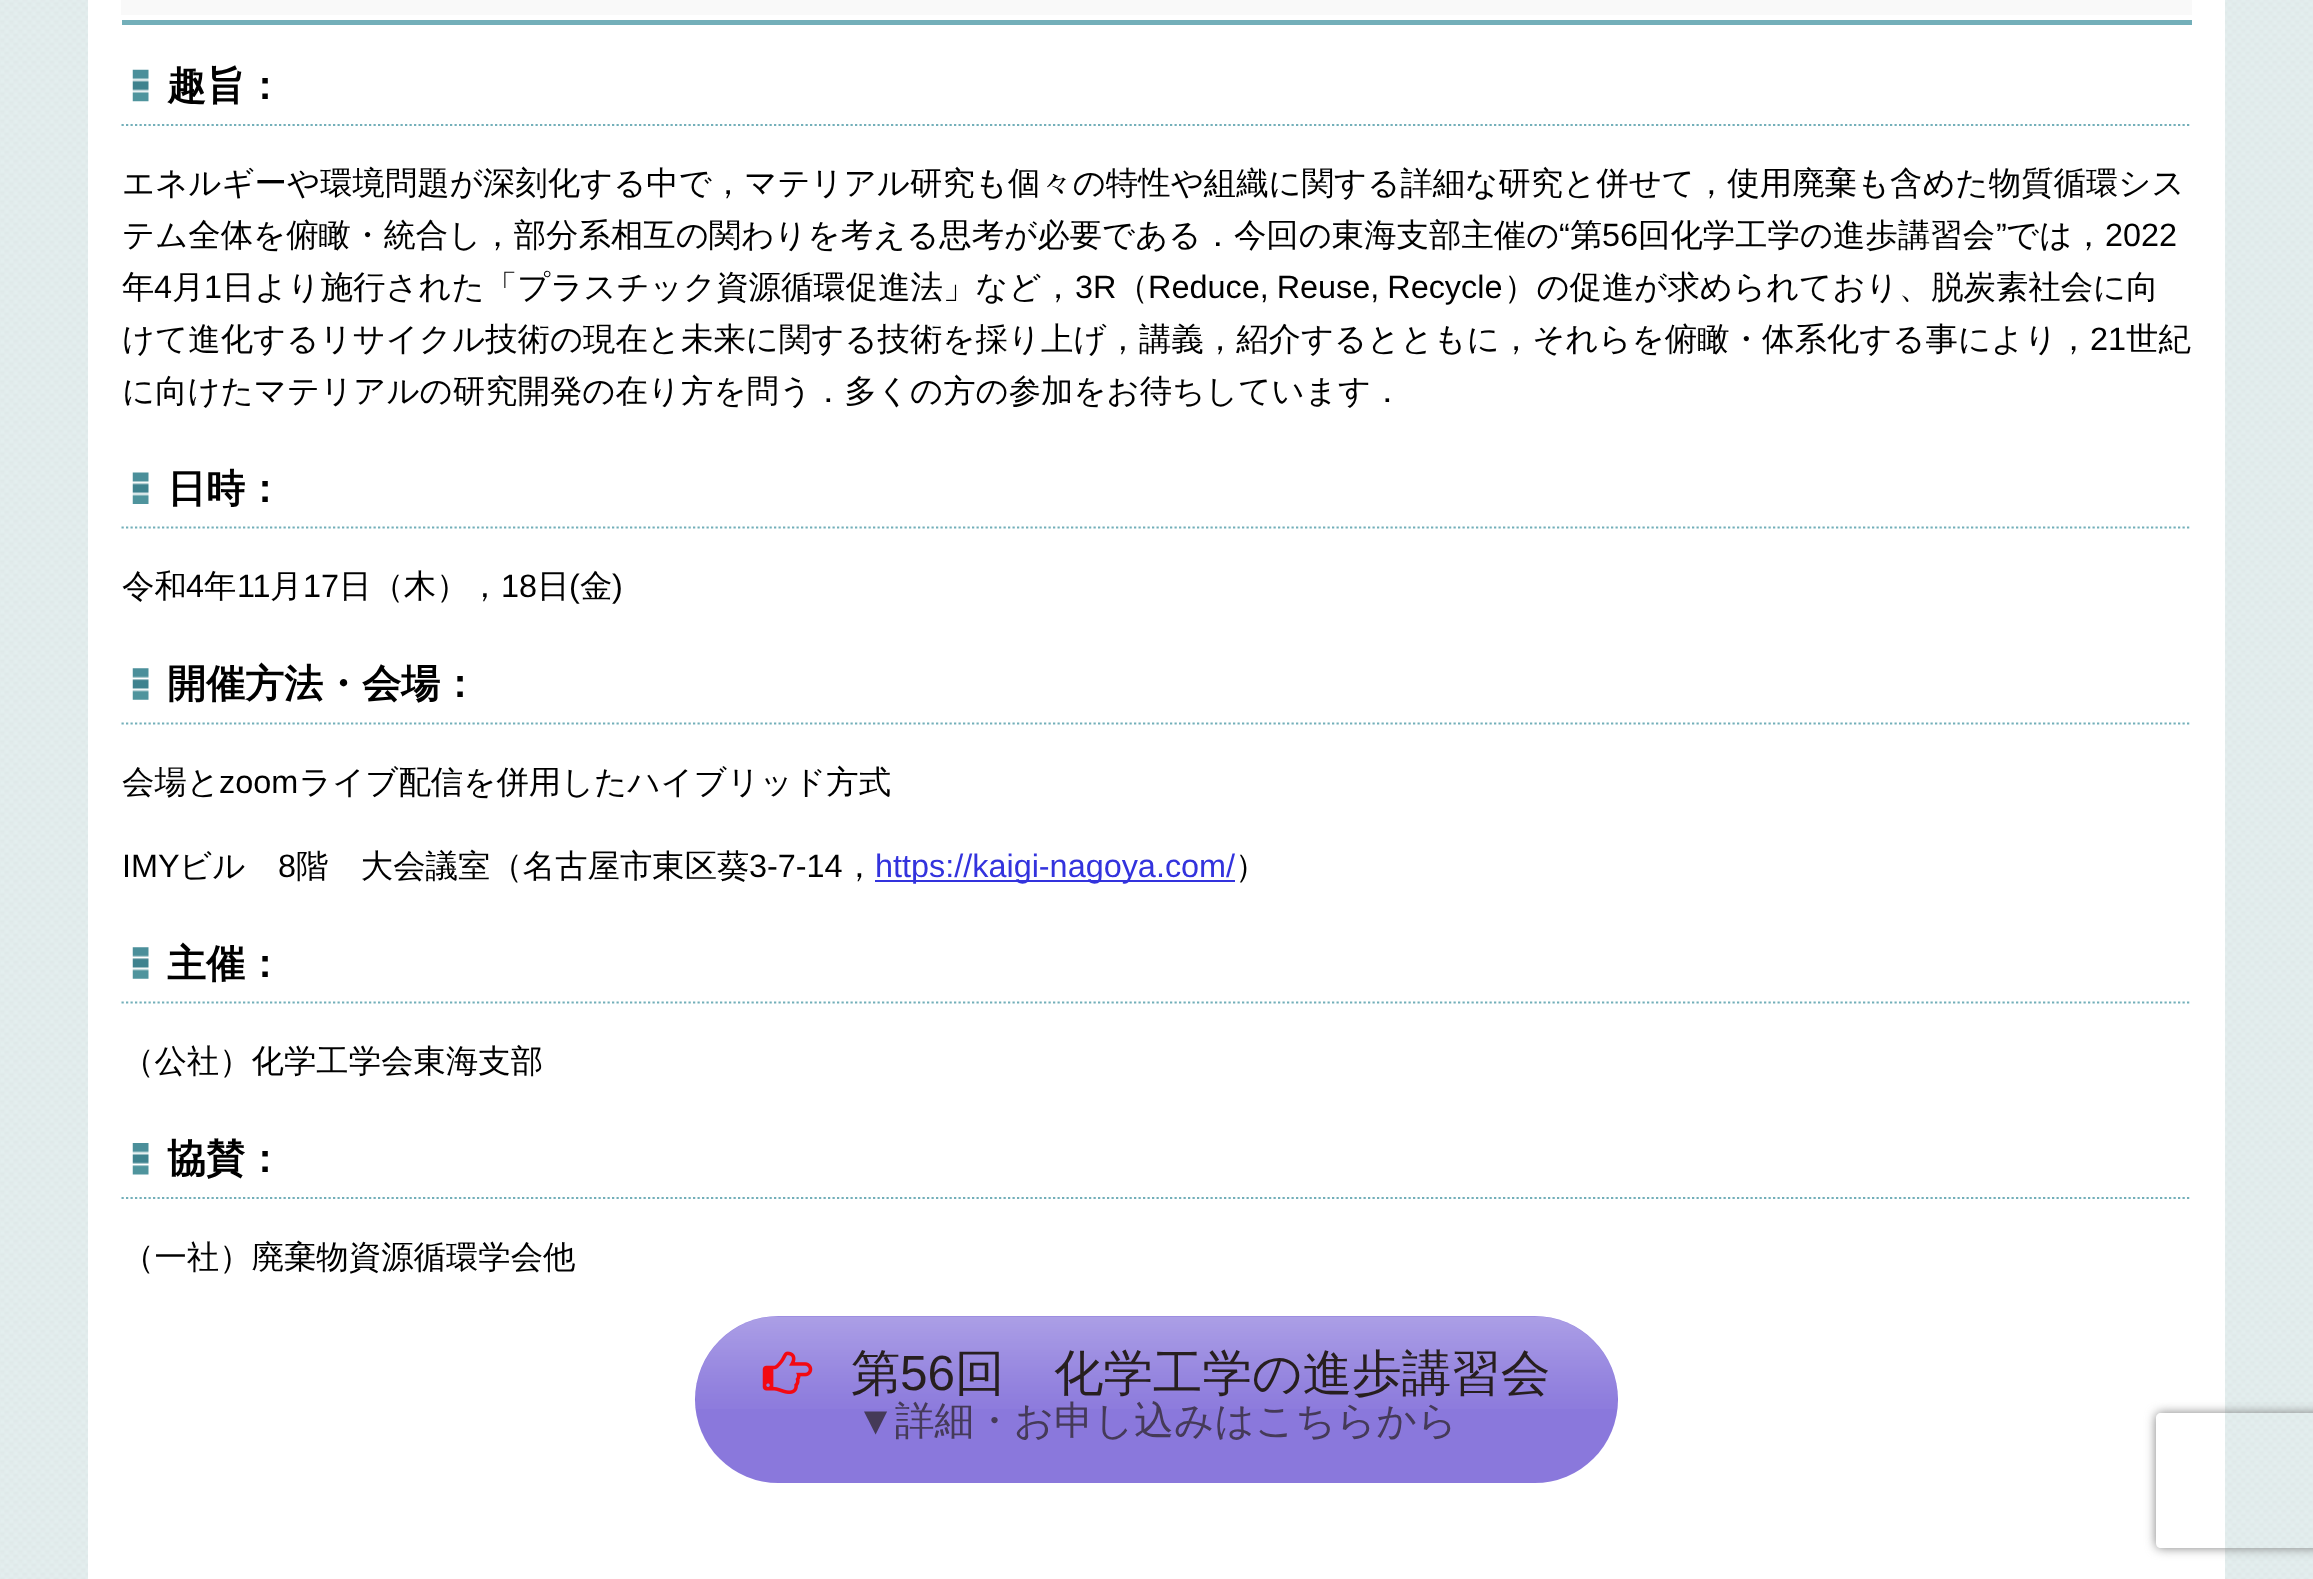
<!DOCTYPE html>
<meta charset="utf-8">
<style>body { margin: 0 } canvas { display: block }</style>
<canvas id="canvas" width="2313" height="1579"></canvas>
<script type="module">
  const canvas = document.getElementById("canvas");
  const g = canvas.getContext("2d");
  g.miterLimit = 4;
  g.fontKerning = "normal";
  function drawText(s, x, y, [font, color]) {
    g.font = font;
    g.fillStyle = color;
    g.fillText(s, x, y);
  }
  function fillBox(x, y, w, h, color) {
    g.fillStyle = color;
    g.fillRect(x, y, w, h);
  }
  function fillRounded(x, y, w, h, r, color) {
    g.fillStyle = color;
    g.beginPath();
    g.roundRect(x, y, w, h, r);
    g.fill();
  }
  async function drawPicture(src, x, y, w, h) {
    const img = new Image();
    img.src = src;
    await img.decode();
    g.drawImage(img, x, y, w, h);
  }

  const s1 = ["bold 39px WenQuanYi Zen Hei", "#000000"];
  const s2 = ["500 32.4px WenQuanYi Zen Hei", "#000000"];
  const s3 = ["32.4px Liberation Sans", "#000000"];
  const s4 = ["32.4px Liberation Sans", "#3333DD"];
  const s5 = ["500 49.5px WenQuanYi Zen Hei", "#271F1F"];
  const s6 = ["49.5px Liberation Sans", "#271F1F"];
  const s7 = ["39.6px Liberation Sans", "#453A58"];
  const s8 = ["500 39.6px WenQuanYi Zen Hei", "#453A58"];

  fillBox(0, 0, 2313, 1579, "#FFFFFF");
  await drawPicture("pic1.png", 0, 0, 2313, 1579);
  fillBox(88, 0, 2137, 1579, "#FFFFFF");
  fillBox(121, 0, 2071, 15, "#F9F9F9");
  fillBox(122, 20, 2070, 5, "#73AFB9");
  await drawPicture("pic2.png", 132, 69, 17, 33);
  g.beginPath();
  g.moveTo(121.5, 125);
  g.lineTo(2191.5, 125);
  g.strokeStyle = "#73AFB9";
  g.lineWidth = 2.2;
  g.setLineDash([2.25, 2.25]);
  g.stroke();
  drawText("趣旨：", 167, 99, s1);
  drawText("エネルギーや環境問題が深刻化する中で，マテリアル研究も個々の特性や組織に関する詳細な研究と併せて，使用廃棄も含めた物質循環シス", 122, 194, s2);
  drawText("テム全体を俯瞰・統合し，部分系相互の関わりを考える思考が必要である．今回の東海支部主催の", 122, 246, s2);
  drawText("“", 1559, 246, s3);
  drawText("第", 1570, 246, s2);
  drawText("56", 1602, 246, s3);
  drawText("回化学工学の進歩講習会", 1638, 246, s2);
  drawText("”", 1996, 246, s3);
  drawText("では，", 2006, 246, s2);
  drawText("2022", 2105, 246, s3);
  drawText("年", 122, 298, s2);
  drawText("4", 154, 298, s3);
  drawText("月", 172, 298, s2);
  drawText("1", 204, 298, s3);
  drawText("日より施行された「プラスチック資源循環促進法」など，", 222, 298, s2);
  drawText("3R", 1075, 298, s3);
  drawText("（", 1116, 298, s2);
  g.wordSpacing = "-1px";
  drawText("Reduce, Reuse, Recycle", 1148, 298, s3);
  g.wordSpacing = "0px";
  drawText("）の促進が求められており、脱炭素社会に向", 1504, 298, s2);
  drawText("けて進化するリサイクル技術の現在と未来に関する技術を採り上げ，講義，紹介するとともに，それらを俯瞰・体系化する事により，", 122, 350, s2);
  drawText("21", 2090, 350, s3);
  drawText("世紀", 2126, 350, s2);
  drawText("に向けたマテリアルの研究開発の在り方を問う．多くの方の参加をお待ちしています．", 122, 402, s2);
  await drawPicture("pic3.png", 132, 472, 17, 32);
  g.beginPath();
  g.moveTo(121.5, 527.5);
  g.lineTo(2191.5, 527.5);
  g.stroke();
  drawText("日時：", 167, 502, s1);
  drawText("令和", 122, 597, s2);
  drawText("4", 186, 597, s3);
  drawText("年", 204, 597, s2);
  drawText("11", 237, 597, s3);
  drawText("月", 270, 597, s2);
  drawText("17", 303, 597, s3);
  drawText("日（木），", 339, 597, s2);
  drawText("18", 501, 597, s3);
  drawText("日", 537, 597, s2);
  drawText("(", 569, 597, s3);
  drawText("金", 580, 597, s2);
  drawText(")", 612, 597, s3);
  await drawPicture("pic4.png", 132, 668, 17, 32);
  g.beginPath();
  g.moveTo(121.5, 723.5);
  g.lineTo(2191.5, 723.5);
  g.stroke();
  drawText("開催方法・会場：", 167, 697, s1);
  drawText("会場と", 122, 793, s2);
  drawText("zoom", 219, 793, s3);
  drawText("ライブ配信を併用したハイブリッド方式", 299, 793, s2);
  drawText("IMY", 122, 877, s3);
  drawText("ビル", 179, 877, s2);
  drawText("8", 278, 877, s3);
  drawText("階　大会議室（名古屋市東区葵", 296, 877, s2);
  drawText("3-7-14", 749, 877, s3);
  drawText("，", 843, 877, s2);
  fillBox(875, 880, 360, 2, "#3333DD");
  drawText("https://kaigi-nagoya.com/", 875, 877, s4);
  drawText("）", 1235, 877, s2);
  await drawPicture("pic4.png", 132, 947, 17, 32);
  g.beginPath();
  g.moveTo(121.5, 1002.5);
  g.lineTo(2191.5, 1002.5);
  g.stroke();
  drawText("主催：", 167, 977, s1);
  drawText("（公社）化学工学会東海支部", 122, 1072, s2);
  await drawPicture("pic5.png", 132, 1143, 17, 32);
  g.beginPath();
  g.moveTo(121.5, 1198);
  g.lineTo(2191.5, 1198);
  g.stroke();
  drawText("協賛：", 167, 1172, s1);
  drawText("（一社）廃棄物資源循環学会他", 122, 1268, s2);
  fillRounded(695, 1316, 923, 167, 83.5, "#8A78DC");
  await drawPicture("pic6.png", 696, 1316, 921, 93);
  await drawPicture("pic7.png", 762, 1351, 51, 43);
  drawText("第", 851, 1390, s5);
  drawText("56", 900, 1390, s6);
  drawText("回　化学工学の進歩講習会", 955, 1390, s5);
  drawText("▼", 856, 1434, s7);
  drawText("詳細・お申し込みはこちらから", 895, 1434, s8);
  g.save();
  g.beginPath();
  g.moveTo(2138, 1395);
  g.lineTo(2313, 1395);
  g.lineTo(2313, 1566);
  g.lineTo(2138, 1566);
  g.closePath();
  g.moveTo(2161, 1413);
  g.lineTo(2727, 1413);
  g.bezierCurveTo(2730, 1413, 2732, 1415, 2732, 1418);
  g.lineTo(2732, 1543);
  g.bezierCurveTo(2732, 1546, 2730, 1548, 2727, 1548);
  g.lineTo(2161, 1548);
  g.bezierCurveTo(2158, 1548, 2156, 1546, 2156, 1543);
  g.lineTo(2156, 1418);
  g.bezierCurveTo(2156, 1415, 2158, 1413, 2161, 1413);
  g.closePath();
  g.clip("evenodd");
  g.fillStyle = "#808080";
  g.filter = "blur(5.5px)";
  g.beginPath();
  g.roundRect(2156, 1413, 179, 135, 5);
  g.fill();
  g.filter = "none";
  g.restore();
</script>
